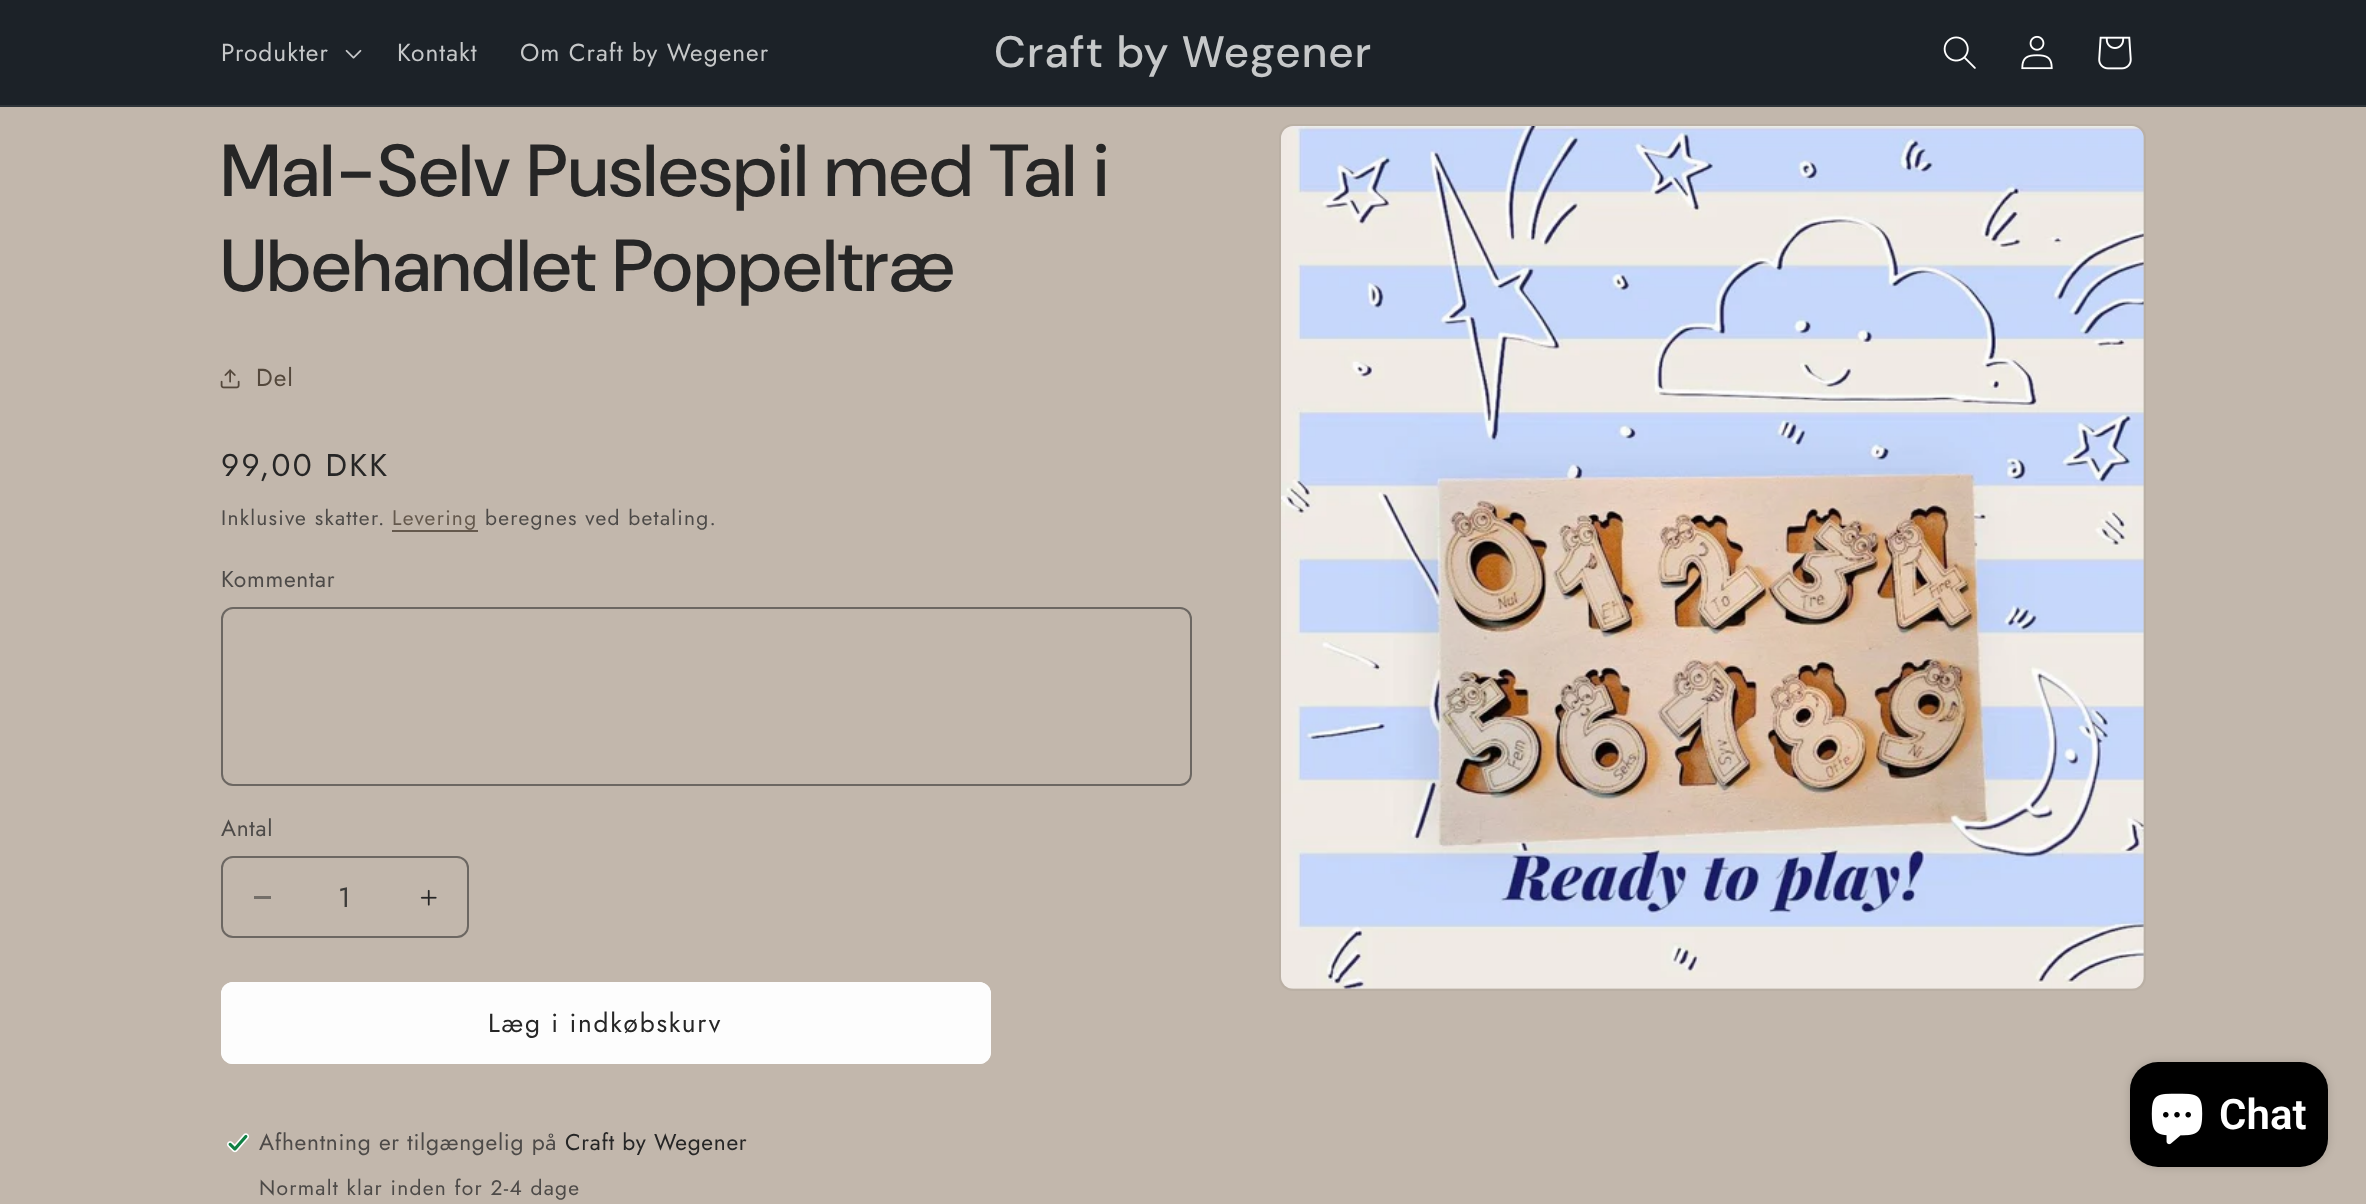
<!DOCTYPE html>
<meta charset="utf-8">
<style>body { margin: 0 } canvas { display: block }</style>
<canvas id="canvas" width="2366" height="1204"></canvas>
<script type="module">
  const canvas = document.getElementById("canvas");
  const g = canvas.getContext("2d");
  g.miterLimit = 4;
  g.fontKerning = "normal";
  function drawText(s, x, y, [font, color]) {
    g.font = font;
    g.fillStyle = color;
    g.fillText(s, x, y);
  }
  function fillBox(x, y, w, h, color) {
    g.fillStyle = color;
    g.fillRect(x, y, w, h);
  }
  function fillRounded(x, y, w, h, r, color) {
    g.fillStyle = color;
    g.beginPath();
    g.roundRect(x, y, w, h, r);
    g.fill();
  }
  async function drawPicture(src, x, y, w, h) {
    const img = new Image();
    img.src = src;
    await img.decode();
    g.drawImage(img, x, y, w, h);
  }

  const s1 = ["24.5px Jost", "#C6C8C9"];
  const s2 = ["500 44px 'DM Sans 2'", "#C6C8C9"];
  const s3 = ["500 73.5px DM Sans", "#262626"];
  const s4 = ["24.5px Jost", "#54483C"];
  const s5 = ["31.5px Jost", "#262626"];
  const s6 = ["21px Jost", "#4D4A48"];
  const s7 = ["21px Jost", "#65594D"];
  const s8 = ["22.75px Jost", "#4D4A48"];
  const s9 = ["28px Jost", "#3D3C3A"];
  const s10 = ["26.25px Jost", "#262626"];
  const s11 = ["22.75px Jost", "#262626"];
  const s12 = ["600 42px Roboto", "#FFFFFF"];

  fillBox(0, 0, 2366, 1204, "#C2B7AC");
  fillBox(0, 0, 2366, 105, "#1C2228");
  fillBox(0, 105, 2366, 2, "#2E3439");
  g.letterSpacing = "1px";
  drawText("Produkter", 221, 61, s1);
  await drawPicture("pic1.png", 345, 49, 17, 10);
  drawText("Kontakt", 397, 61, s1);
  drawText("Om Craft by Wegener", 520, 61, s1);
  g.letterSpacing = "1.1px";
  drawText("Craft by Wegener", 994, 67, s2);
  await drawPicture("pic2.png", 1943, 36, 33, 33);
  await drawPicture("pic3.png", 2021, 35, 32, 35);
  await drawPicture("pic4.png", 2098, 36, 34, 34);
  drawText("Mal-Selv Puslespil med Tal i", 221, 196, s3);
  drawText("Ubehandlet Poppeltræ", 221, 291, s3);
  await drawPicture("pic5.png", 220, 369, 20, 20);
  g.letterSpacing = "1px";
  drawText("Del", 256, 386, s4);
  g.letterSpacing = "2.25px";
  drawText("99,00 DKK", 221, 476, s5);
  g.letterSpacing = "1.25px";
  drawText("Inklusive skatter.", 221, 525, s6);
  drawText("Levering", 392, 525, s7);
  fillBox(392, 530, 86, 2, "#65594D");
  drawText("beregnes ved betaling.", 485, 525, s6);
  g.letterSpacing = "0.7px";
  drawText("Kommentar", 221, 587, s8);
  g.beginPath();
  g.roundRect(222, 608, 969, 177, 11);
  g.strokeStyle = "#6C6762";
  g.lineWidth = 2;
  g.stroke();
  drawText("Antal", 221, 836, s8);
  fillBox(254, 896, 17, 3, "#746F69");
  await drawPicture("pic6.png", 420, 889, 17, 17);
  g.beginPath();
  g.roundRect(222, 857, 246, 80, 11);
  g.stroke();
  g.letterSpacing = "0px";
  drawText("1", 338, 907, s9);
  fillRounded(221, 982, 770, 82, 12, "#FDFDFD");
  g.beginPath();
  g.roundRect(222, 983, 768, 80, 11);
  g.strokeStyle = "#FDFDFD";
  g.stroke();
  g.letterSpacing = "1.75px";
  drawText("Læg i indkøbskurv", 488, 1032, s10);
  await drawPicture("pic7.png", 227, 1133, 22, 20);
  g.letterSpacing = "0.7px";
  drawText("Afhentning er tilgængelig på", 259, 1150, s8);
  drawText("Craft by Wegener", 565, 1150, s11);
  g.letterSpacing = "1.25px";
  drawText("Normalt klar inden for 2-4 dage", 259, 1195, s6);
  g.beginPath();
  g.roundRect(1280, 125, 865, 865, 13);
  g.strokeStyle = "#BAB0A5";
  g.stroke();
  await drawPicture("pic8.png", 1281, 126, 863, 863);
  g.fillStyle = "rgba(0, 0, 0, 0.15)";
  g.filter = "blur(4.5px)";
  g.beginPath();
  g.roundRect(2130, 1062, 198, 105, 28);
  g.fill();
  g.filter = "none";
  fillRounded(2130, 1062, 198, 105, 28, "#000000");
  await drawPicture("pic9.png", 2151, 1093, 52, 52);
  g.letterSpacing = "0px";
  drawText("Chat", 2219, 1129, s12);
</script>
